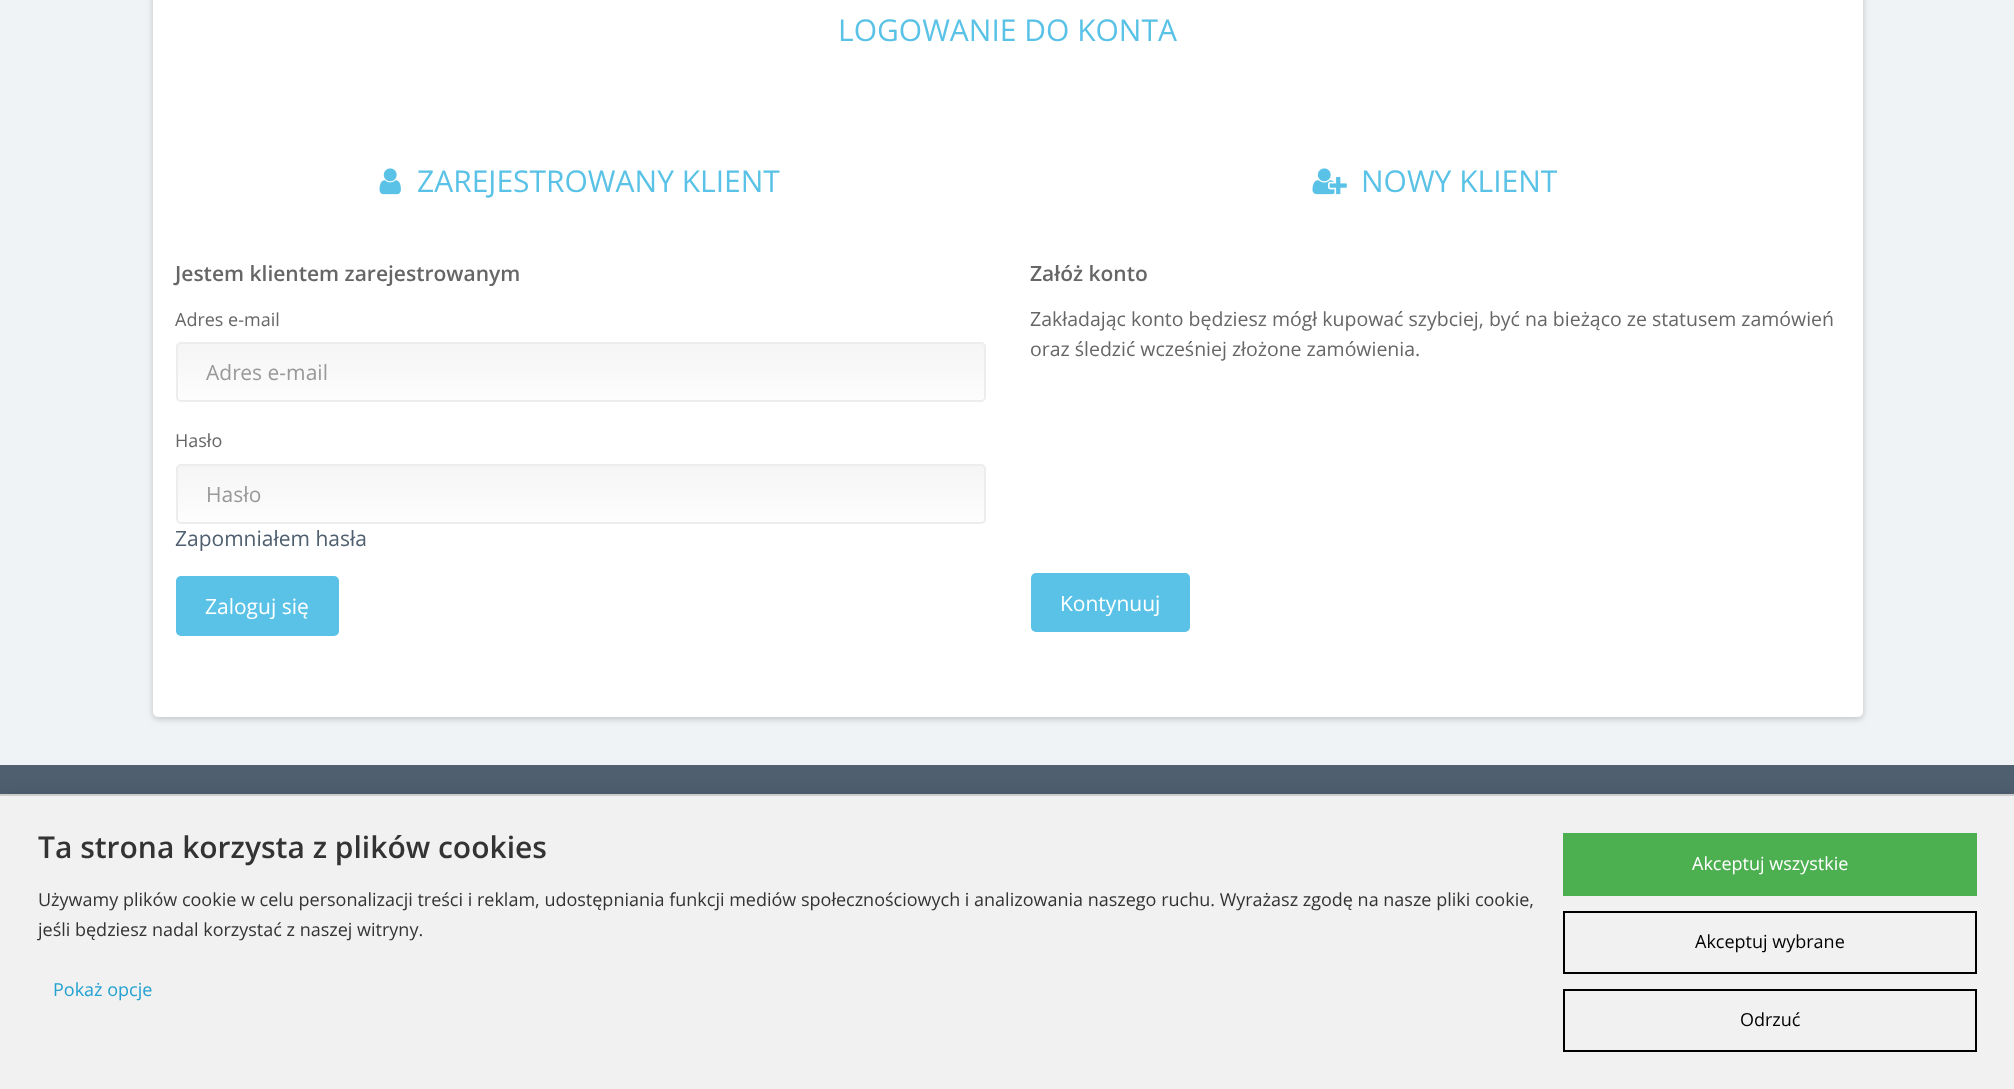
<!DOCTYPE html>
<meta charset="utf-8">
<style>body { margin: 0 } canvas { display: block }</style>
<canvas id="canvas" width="2014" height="1089"></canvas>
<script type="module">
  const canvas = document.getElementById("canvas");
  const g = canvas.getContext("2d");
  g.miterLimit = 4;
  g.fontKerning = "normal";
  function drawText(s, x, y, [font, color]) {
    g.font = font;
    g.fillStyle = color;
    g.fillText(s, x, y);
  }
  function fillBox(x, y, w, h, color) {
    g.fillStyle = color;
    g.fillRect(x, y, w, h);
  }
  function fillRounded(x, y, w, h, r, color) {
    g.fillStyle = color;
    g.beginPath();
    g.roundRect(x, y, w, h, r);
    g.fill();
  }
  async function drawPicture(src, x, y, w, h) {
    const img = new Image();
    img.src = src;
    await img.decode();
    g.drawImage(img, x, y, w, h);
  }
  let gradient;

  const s1 = ["30px Open Sans", "#59C2E6"];
  const s2 = ["600 21px Open Sans", "#666666"];
  const s3 = ["18px Open Sans", "#666666"];
  const s4 = ["21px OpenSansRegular", "#999999"];
  const s5 = ["21px Open Sans", "#4F5F6F"];
  const s6 = ["21px Open Sans", "#FFFFFF"];
  const s7 = ["19.5px Open Sans", "#666666"];
  const s8 = ["600 30px Open Sans", "#333333"];
  const s9 = ["18px Open Sans", "#333333"];
  const s10 = ["18px Open Sans", "#23A1D1"];
  const s11 = ["18px Open Sans", "#FFFFFF"];
  const s12 = ["18px Open Sans", "#000000"];

  fillBox(0, 0, 2014, 1089, "#F0F3F6");
  g.fillStyle = "rgba(0, 0, 0, 0.2)";
  g.filter = "blur(3px)";
  g.beginPath();
  g.roundRect(153, -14, 1710, 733, 5);
  g.fill();
  g.filter = "none";
  fillRounded(153, -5, 1710, 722, 5, "#FFFFFF");
  drawText("LOGOWANIE DO KONTA", 838, 41, s1);
  await drawPicture("pic1.png", 379, 168, 22, 27);
  drawText("ZAREJESTROWANY KLIENT", 417, 192, s1);
  drawText("Jestem klientem zarejestrowanym", 175, 281, s2);
  drawText("Adres e-mail", 175, 326, s3);
  g.save();
  g.beginPath();
  g.roundRect(176, 342, 810, 60, 5);
  g.clip();
  gradient = g.createLinearGradient(581, 343, 581, 401);
  gradient.addColorStop(0, "#F5F5F5");
  gradient.addColorStop(1, "#FDFDFD");
  g.fillStyle = gradient;
  g.fillRect(176, 344, 810, 57);
  g.restore();
  g.beginPath();
  g.roundRect(177, 343, 808, 58, 4);
  g.strokeStyle = "#ECEDEF";
  g.lineWidth = 2;
  g.stroke();
  drawText("Adres e-mail", 206, 380, s4);
  drawText("Hasło", 175, 447, s3);
  g.save();
  g.beginPath();
  g.roundRect(176, 464, 810, 60, 5);
  g.clip();
  gradient = g.createLinearGradient(581, 465, 581, 522);
  gradient.addColorStop(0, "#F5F5F5");
  gradient.addColorStop(1, "#FDFDFD");
  g.fillStyle = gradient;
  g.fillRect(176, 465, 810, 57);
  g.restore();
  g.beginPath();
  g.roundRect(177, 465, 808, 58, 4);
  g.stroke();
  drawText("Hasło", 206, 502, s4);
  drawText("Zapomniałem hasła", 175, 546, s5);
  fillRounded(176, 576, 163, 60, 5, "#59C2E6");
  drawText("Zaloguj się", 205, 614, s6);
  await drawPicture("pic2.png", 1312, 168, 35, 27);
  drawText("NOWY KLIENT", 1361, 192, s1);
  drawText("Załóż konto", 1030, 281, s2);
  drawText("Zakładając konto będziesz mógł kupować szybciej, być na bieżąco ze statusem zamówień", 1030, 326, s7);
  drawText("oraz śledzić wcześniej złożone zamówienia.", 1030, 356, s7);
  fillRounded(1031, 573, 159, 59, 5, "#59C2E6");
  drawText("Kontynuuj", 1060, 611, s6);
  fillBox(0, 765, 2014, 29, "#4F5F6F");
  g.fillStyle = "rgba(0, 0, 0, 0.1)";
  g.filter = "blur(7.5px)";
  g.beginPath();
  g.rect(0, 794, 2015, 295);
  g.fill();
  g.filter = "none";
  fillBox(0, 796, 2014, 293, "#F1F1F1");
  fillBox(0, 794, 2014, 2, "#CCCCCC");
  drawText("Ta strona korzysta z plików cookies", 38, 858, s8);
  drawText("Używamy plików cookie w celu personalizacji treści i reklam, udostępniania funkcji mediów społecznościowych i analizowania naszego ruchu. Wyrażasz zgodę na nasze pliki cookie,", 38, 906, s9);
  drawText("jeśli będziesz nadal korzystać z naszej witryny.", 38, 936, s9);
  drawText("Pokaż opcje", 53, 996, s10);
  fillBox(1563, 833, 414, 63, "#4CAF50");
  drawText("Akceptuj wszystkie", 1692, 870, s11);
  g.strokeStyle = "#000000";
  g.strokeRect(1564, 912, 412, 61);
  drawText("Akceptuj wybrane", 1695, 948, s12);
  g.strokeRect(1564, 990, 412, 61);
  drawText("Odrzuć", 1740, 1026, s12);
</script>
